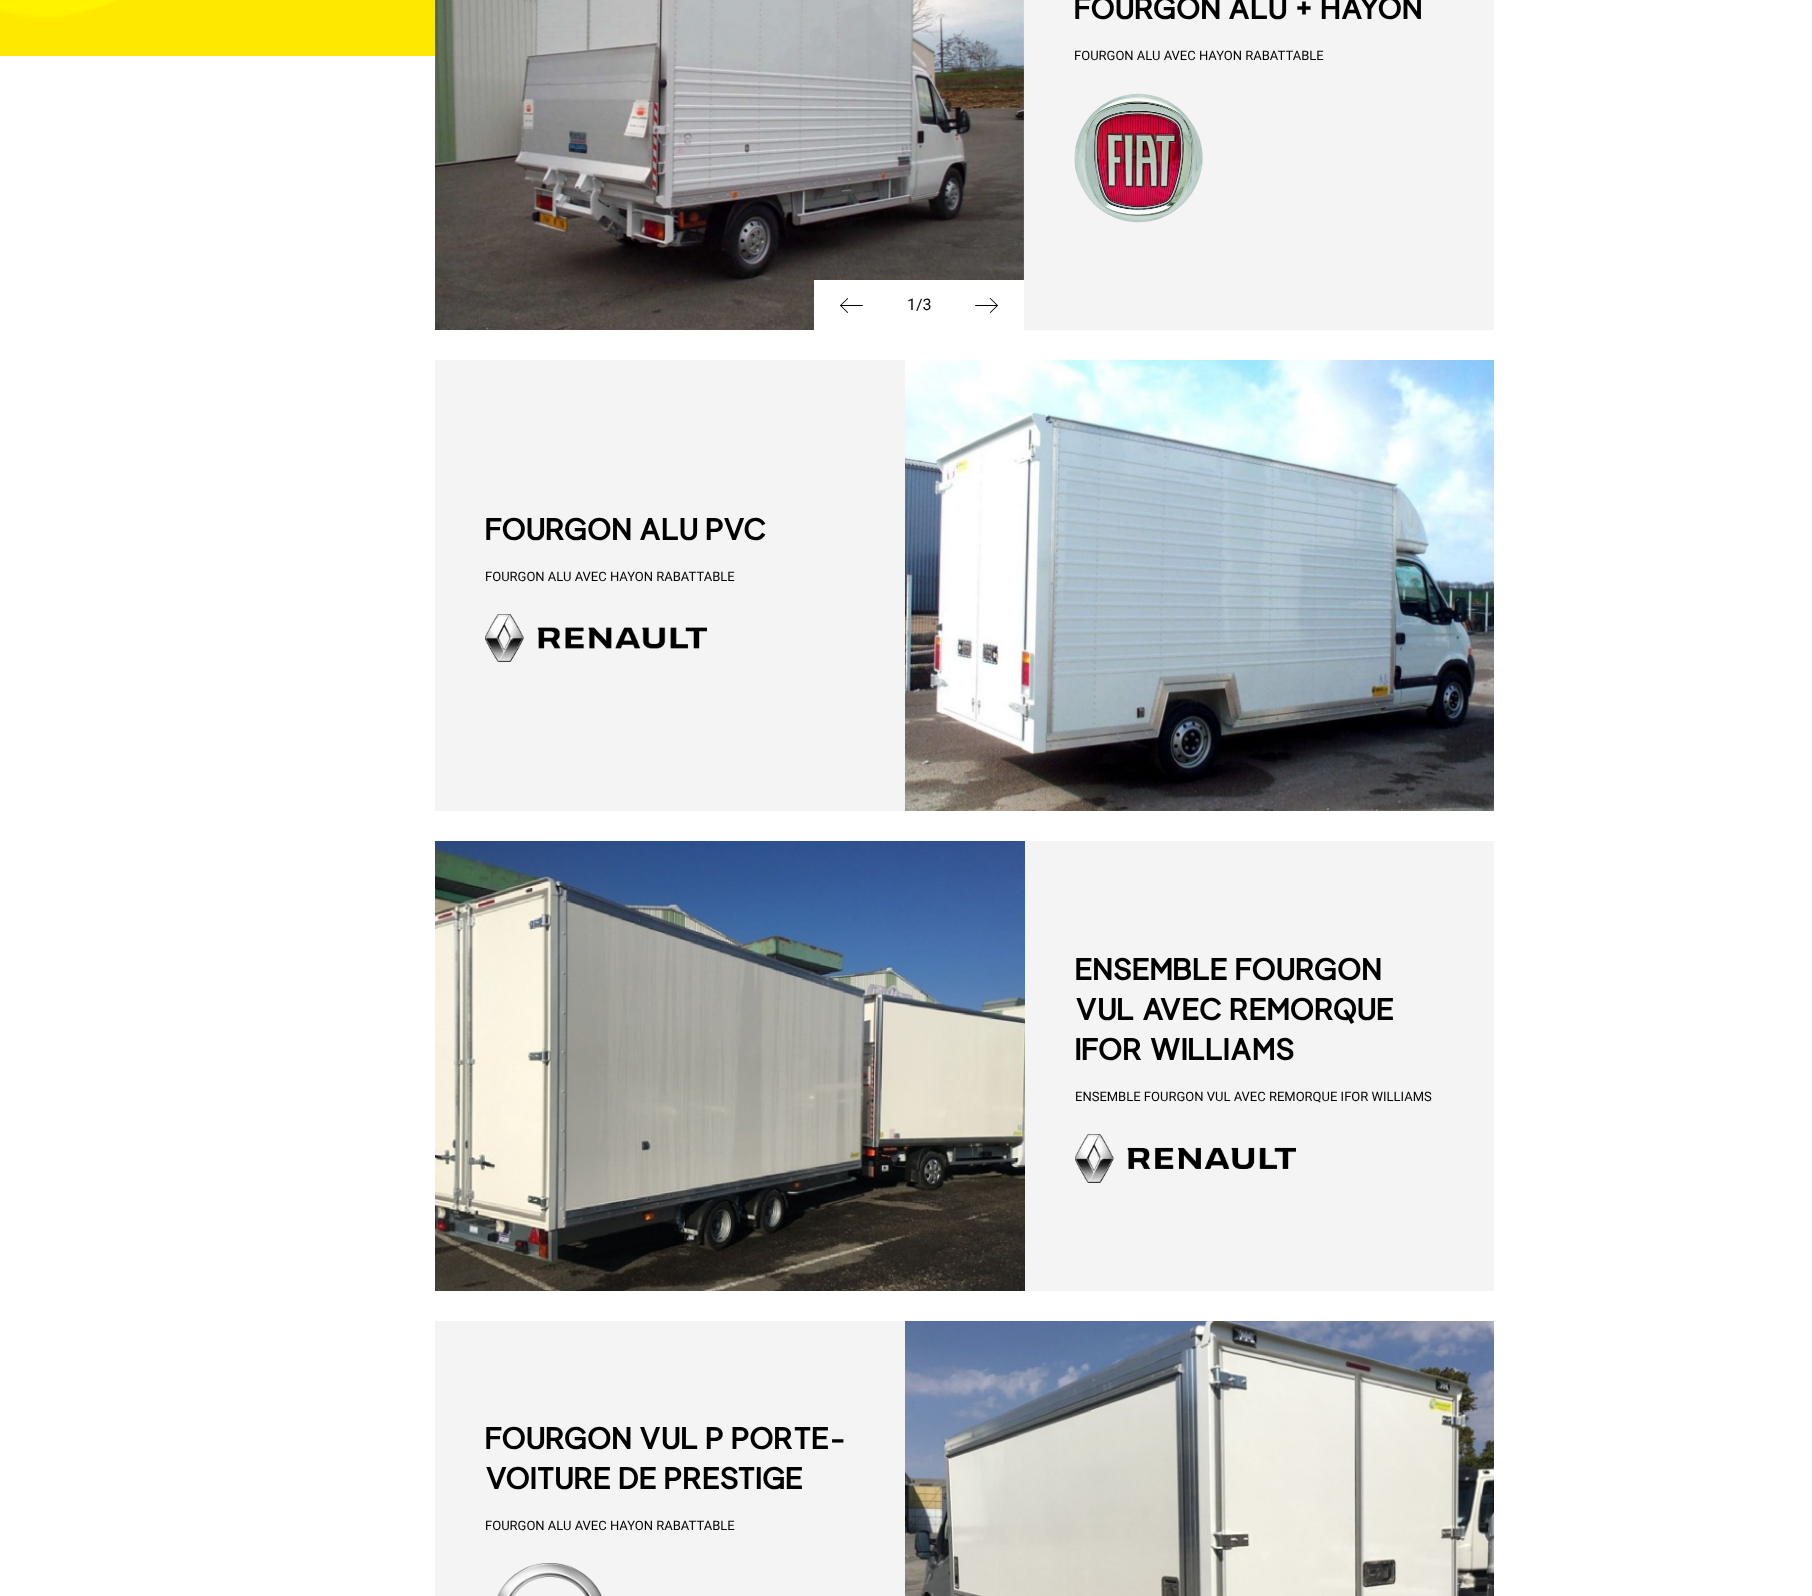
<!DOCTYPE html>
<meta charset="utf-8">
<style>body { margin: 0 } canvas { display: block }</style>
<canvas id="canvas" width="1812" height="1596"></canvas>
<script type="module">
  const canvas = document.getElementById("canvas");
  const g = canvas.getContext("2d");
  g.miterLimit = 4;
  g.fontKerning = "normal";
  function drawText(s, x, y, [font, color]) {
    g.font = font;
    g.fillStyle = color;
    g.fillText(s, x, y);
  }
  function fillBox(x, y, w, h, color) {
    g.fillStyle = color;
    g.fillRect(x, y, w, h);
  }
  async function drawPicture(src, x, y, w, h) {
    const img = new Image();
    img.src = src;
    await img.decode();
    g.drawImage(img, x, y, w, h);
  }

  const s1 = ["500 30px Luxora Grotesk", "#000000"];
  const s2 = ["13px Roboto", "#000000"];
  const s3 = ["16px Roboto", "#000000"];

  fillBox(0, 0, 1812, 1596, "#FFFFFF");
  fillBox(0, 0, 435, 56, "#FFE800");
  await drawPicture("pic1.png", 0, 0, 117, 18);
  fillBox(1024, 0, 470, 330, "#F4F4F4");
  drawText("FOURGON ALU + HAYON", 1074, 19, s1);
  drawText("FOURGON ALU AVEC HAYON RABATTABLE", 1074, 60, s2);
  await drawPicture("pic2.png", 1074, 93, 129, 130);
  await drawPicture("pic3.png", 435, 0, 589, 330);
  fillBox(814, 280, 210, 50, "#FFFFFF");
  await drawPicture("pic4.png", 840, 298, 23, 15);
  await drawPicture("pic5.png", 975, 298, 23, 15);
  drawText("1/3", 907, 310, s3);
  fillBox(435, 360, 470, 451, "#F4F4F4");
  drawText("FOURGON ALU PVC", 485, 540, s1);
  drawText("FOURGON ALU AVEC HAYON RABATTABLE", 485, 581, s2);
  await drawPicture("pic6.png", 485, 614, 222, 48);
  await drawPicture("pic7.png", 905, 360, 589, 451);
  await drawPicture("pic8.png", 435, 841, 590, 450);
  fillBox(1025, 841, 469, 450, "#F4F4F4");
  drawText("ENSEMBLE FOURGON", 1075, 980, s1);
  drawText("VUL AVEC REMORQUE", 1075, 1020, s1);
  drawText("IFOR WILLIAMS", 1075, 1060, s1);
  drawText("ENSEMBLE FOURGON VUL AVEC REMORQUE IFOR WILLIAMS", 1075, 1101, s2);
  await drawPicture("pic9.png", 1075, 1134, 221, 49);
  fillBox(435, 1321, 470, 275, "#F4F4F4");
  drawText("FOURGON VUL P PORTE-", 485, 1449, s1);
  drawText("VOITURE DE PRESTIGE", 485, 1489, s1);
  drawText("FOURGON ALU AVEC HAYON RABATTABLE", 485, 1530, s2);
  await drawPicture("pic10.png", 497, 1563, 105, 33);
  await drawPicture("pic11.png", 905, 1321, 589, 275);
</script>
